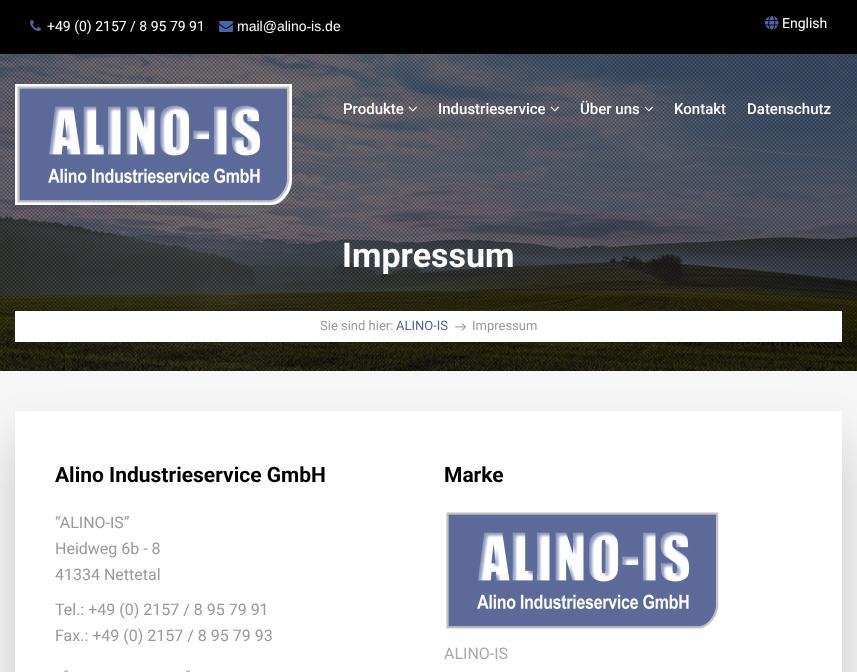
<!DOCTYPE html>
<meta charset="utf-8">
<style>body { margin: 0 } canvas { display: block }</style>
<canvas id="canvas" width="857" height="672"></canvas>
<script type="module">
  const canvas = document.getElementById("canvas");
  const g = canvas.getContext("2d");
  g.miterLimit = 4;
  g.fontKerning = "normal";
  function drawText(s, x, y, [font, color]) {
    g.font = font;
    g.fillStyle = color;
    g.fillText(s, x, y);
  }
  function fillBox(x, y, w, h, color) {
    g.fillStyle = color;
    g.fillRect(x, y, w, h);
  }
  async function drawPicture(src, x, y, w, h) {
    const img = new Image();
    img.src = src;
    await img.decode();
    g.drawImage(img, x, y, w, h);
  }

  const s1 = ["14px Roboto", "#FFFFFF"];
  const s2 = ["14px Liberation Sans", "#FFFFFF"];
  const s3 = ["500 15px Roboto", "#FFFFFF"];
  const s4 = ["bold 34px Roboto", "#FFFFFF"];
  const s5 = ["13px Roboto", "#999999"];
  const s6 = ["13px Roboto", "#4A66A8"];
  const s7 = ["bold 21px Roboto", "#000000"];
  const s8 = ["16px Roboto", "#999999"];
  const s9 = ["16px Roboto", "#AAAAAA"];

  fillBox(0, 0, 857, 672, "#F6F6F6");
  fillBox(0, 0, 857, 54, "#000000");
  await drawPicture("pic1.png", 30, 20, 11, 11);
  drawText("+49 (0) 2157 / 8 95 79 91", 47, 31, s1);
  await drawPicture("pic2.png", 219, 21, 14, 11);
  drawText("mail@alino‑is.de", 237, 31, s2);
  await drawPicture("pic3.png", 765, 16, 14, 14);
  drawText("English", 782, 28, s1);
  await drawPicture("pic8.png", 0, 54, 857, 317);
  await drawPicture("pic9.png", 0, 54, 857, 317);
  await drawPicture("pic4.png", 15, 84, 277, 121);
  drawText("Produkte", 343, 114, s3);
  await drawPicture("pic5.png", 408, 106, 9, 6);
  drawText("Industrieservice", 438, 114, s3);
  await drawPicture("pic6.png", 550, 106, 9, 6);
  drawText("Über uns", 580, 114, s3);
  await drawPicture("pic7.png", 644, 106, 9, 6);
  drawText("Kontakt", 674, 114, s3);
  drawText("Datenschutz", 747, 114, s3);
  drawText("Impressum", 342, 267, s4);
  fillBox(15, 311, 827, 31, "#FFFFFF");
  drawText("Sie sind hier:", 320, 330, s5);
  drawText("ALINO-IS", 396, 330, s6);
  await drawPicture("pic10.png", 455, 323, 11, 8);
  drawText("Impressum", 472, 330, s5);
  g.fillStyle = "rgba(1, 1, 1, 0.18)";
  g.filter = "blur(25px)";
  g.beginPath();
  g.rect(15, 441, 827, 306);
  g.fill();
  g.filter = "none";
  fillBox(15, 411, 827, 261, "#FFFFFF");
  drawText("Alino Industrieservice GmbH", 55, 482, s7);
  drawText("“ALINO-IS”", 55, 528, s8);
  drawText("Heidweg 6b - 8", 55, 554, s8);
  drawText("41334 Nettetal", 55, 580, s8);
  drawText("Tel.: +49 (0) 2157 / 8 95 79 91", 55, 615, s8);
  drawText("Fax.: +49 (0) 2157 / 8 95 79 93", 55, 641, s8);
  drawText("-", 64, 676, s9);
  drawText("-", 186, 676, s9);
  drawText("Marke", 444, 482, s7);
  await drawPicture("pic11.png", 446, 512, 273, 117);
  drawText("ALINO-IS", 444, 659, s9);
</script>
